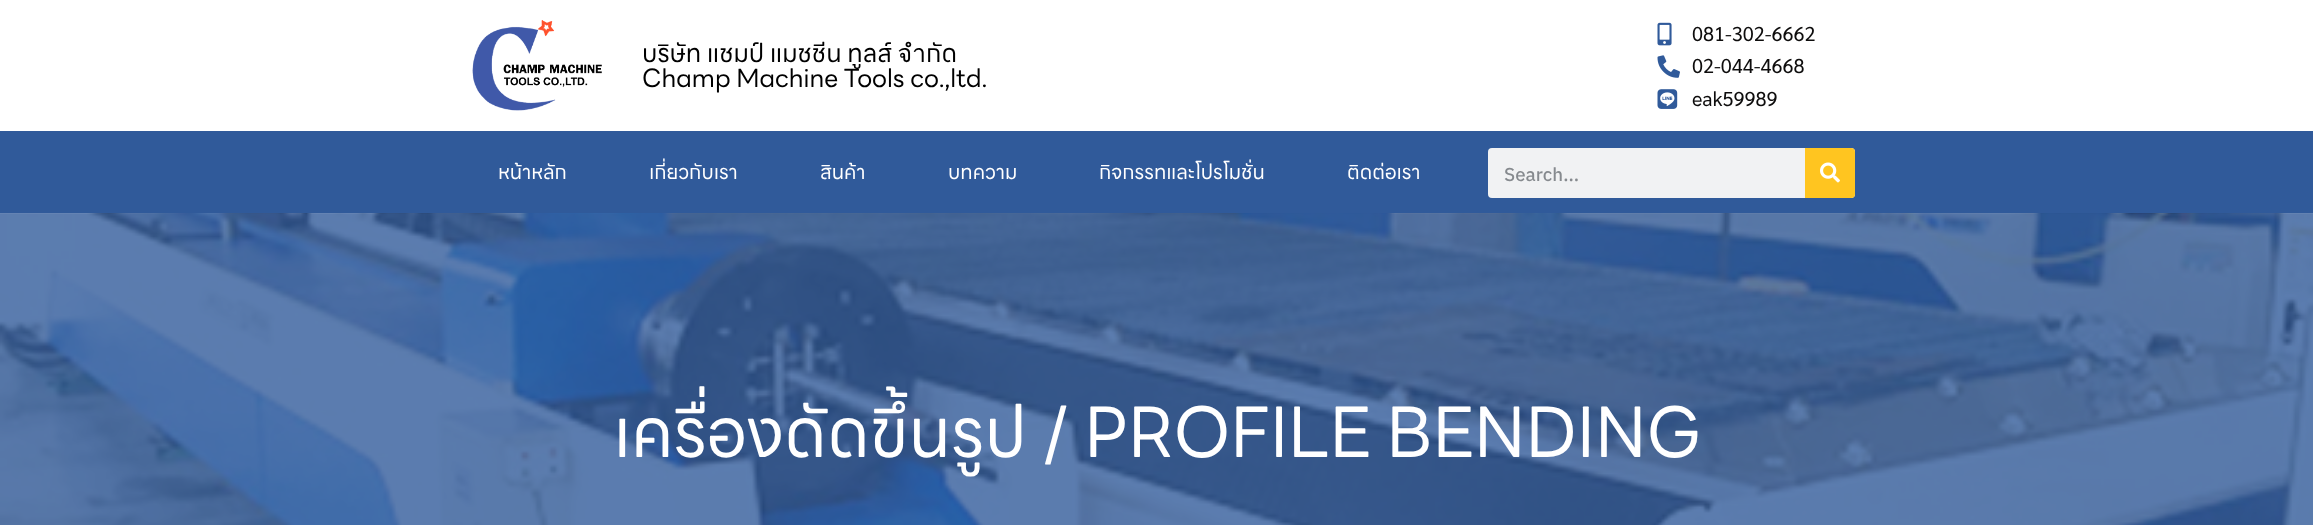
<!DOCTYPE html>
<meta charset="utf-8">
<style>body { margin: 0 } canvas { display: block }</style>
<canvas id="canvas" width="2313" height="525"></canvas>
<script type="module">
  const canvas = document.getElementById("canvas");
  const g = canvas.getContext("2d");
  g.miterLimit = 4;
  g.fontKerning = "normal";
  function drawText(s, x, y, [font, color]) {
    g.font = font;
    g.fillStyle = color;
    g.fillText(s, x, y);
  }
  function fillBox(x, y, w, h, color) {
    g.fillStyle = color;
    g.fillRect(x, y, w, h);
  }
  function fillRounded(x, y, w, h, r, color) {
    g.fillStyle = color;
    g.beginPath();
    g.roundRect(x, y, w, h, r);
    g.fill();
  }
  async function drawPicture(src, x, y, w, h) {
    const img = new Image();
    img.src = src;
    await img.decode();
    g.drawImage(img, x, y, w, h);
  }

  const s1 = ["25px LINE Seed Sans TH", "#000000"];
  const s2 = ["20px Sarabun", "#0E0D0D"];
  const s3 = ["20px LINE Seed Sans TH", "#FFFFFF"];
  const s4 = ["500 18.75px Anuphan", "#868A8E"];
  const s5 = ["68.75px LINE Seed Sans TH", "#FFFFFF"];

  fillBox(0, 0, 2313, 525, "#FFFFFF");
  await drawPicture("pic1.png", 472, 20, 130, 91);
  drawText("บริษัท แชมป์ แมชชีน ทูลส์ จำกัด", 642, 62, s1);
  drawText("Champ Machine Tools co.,ltd.", 642, 87, s1);
  await drawPicture("pic2.png", 1657, 22, 15, 24);
  drawText("081-302-6662", 1692, 41, s2);
  await drawPicture("pic3.png", 1657, 55, 23, 23);
  drawText("02-044-4668", 1692, 73, s2);
  await drawPicture("pic4.png", 1657, 89, 21, 20);
  drawText("eak59989", 1692, 106, s2);
  fillBox(0, 131, 2313, 83, "#305A9A");
  drawText("หน้าหลัก", 498, 179, s3);
  drawText("เกี่ยวกับเรา", 649, 179, s3);
  drawText("สินค้า", 820, 179, s3);
  drawText("บทความ", 948, 179, s3);
  drawText("กิจกรรทและโปรโมชั่น", 1099, 179, s3);
  drawText("ติดต่อเรา", 1347, 179, s3);
  fillRounded(1488, 148, 367, 50, 4, "#F1F2F3");
  drawText("Search...", 1504, 181, s4);
  g.fillStyle = "#FFC520";
  g.beginPath();
  g.roundRect(1805, 148, 50, 50, [0, 4, 4, 0]);
  g.fill();
  await drawPicture("pic5.png", 1820, 162, 20, 21);
  await drawPicture("pic6.png", 0, 213, 2313, 312);
  drawText("เครื่องดัดขึ้นรูป / PROFILE BENDING", 613, 457, s5);
</script>
